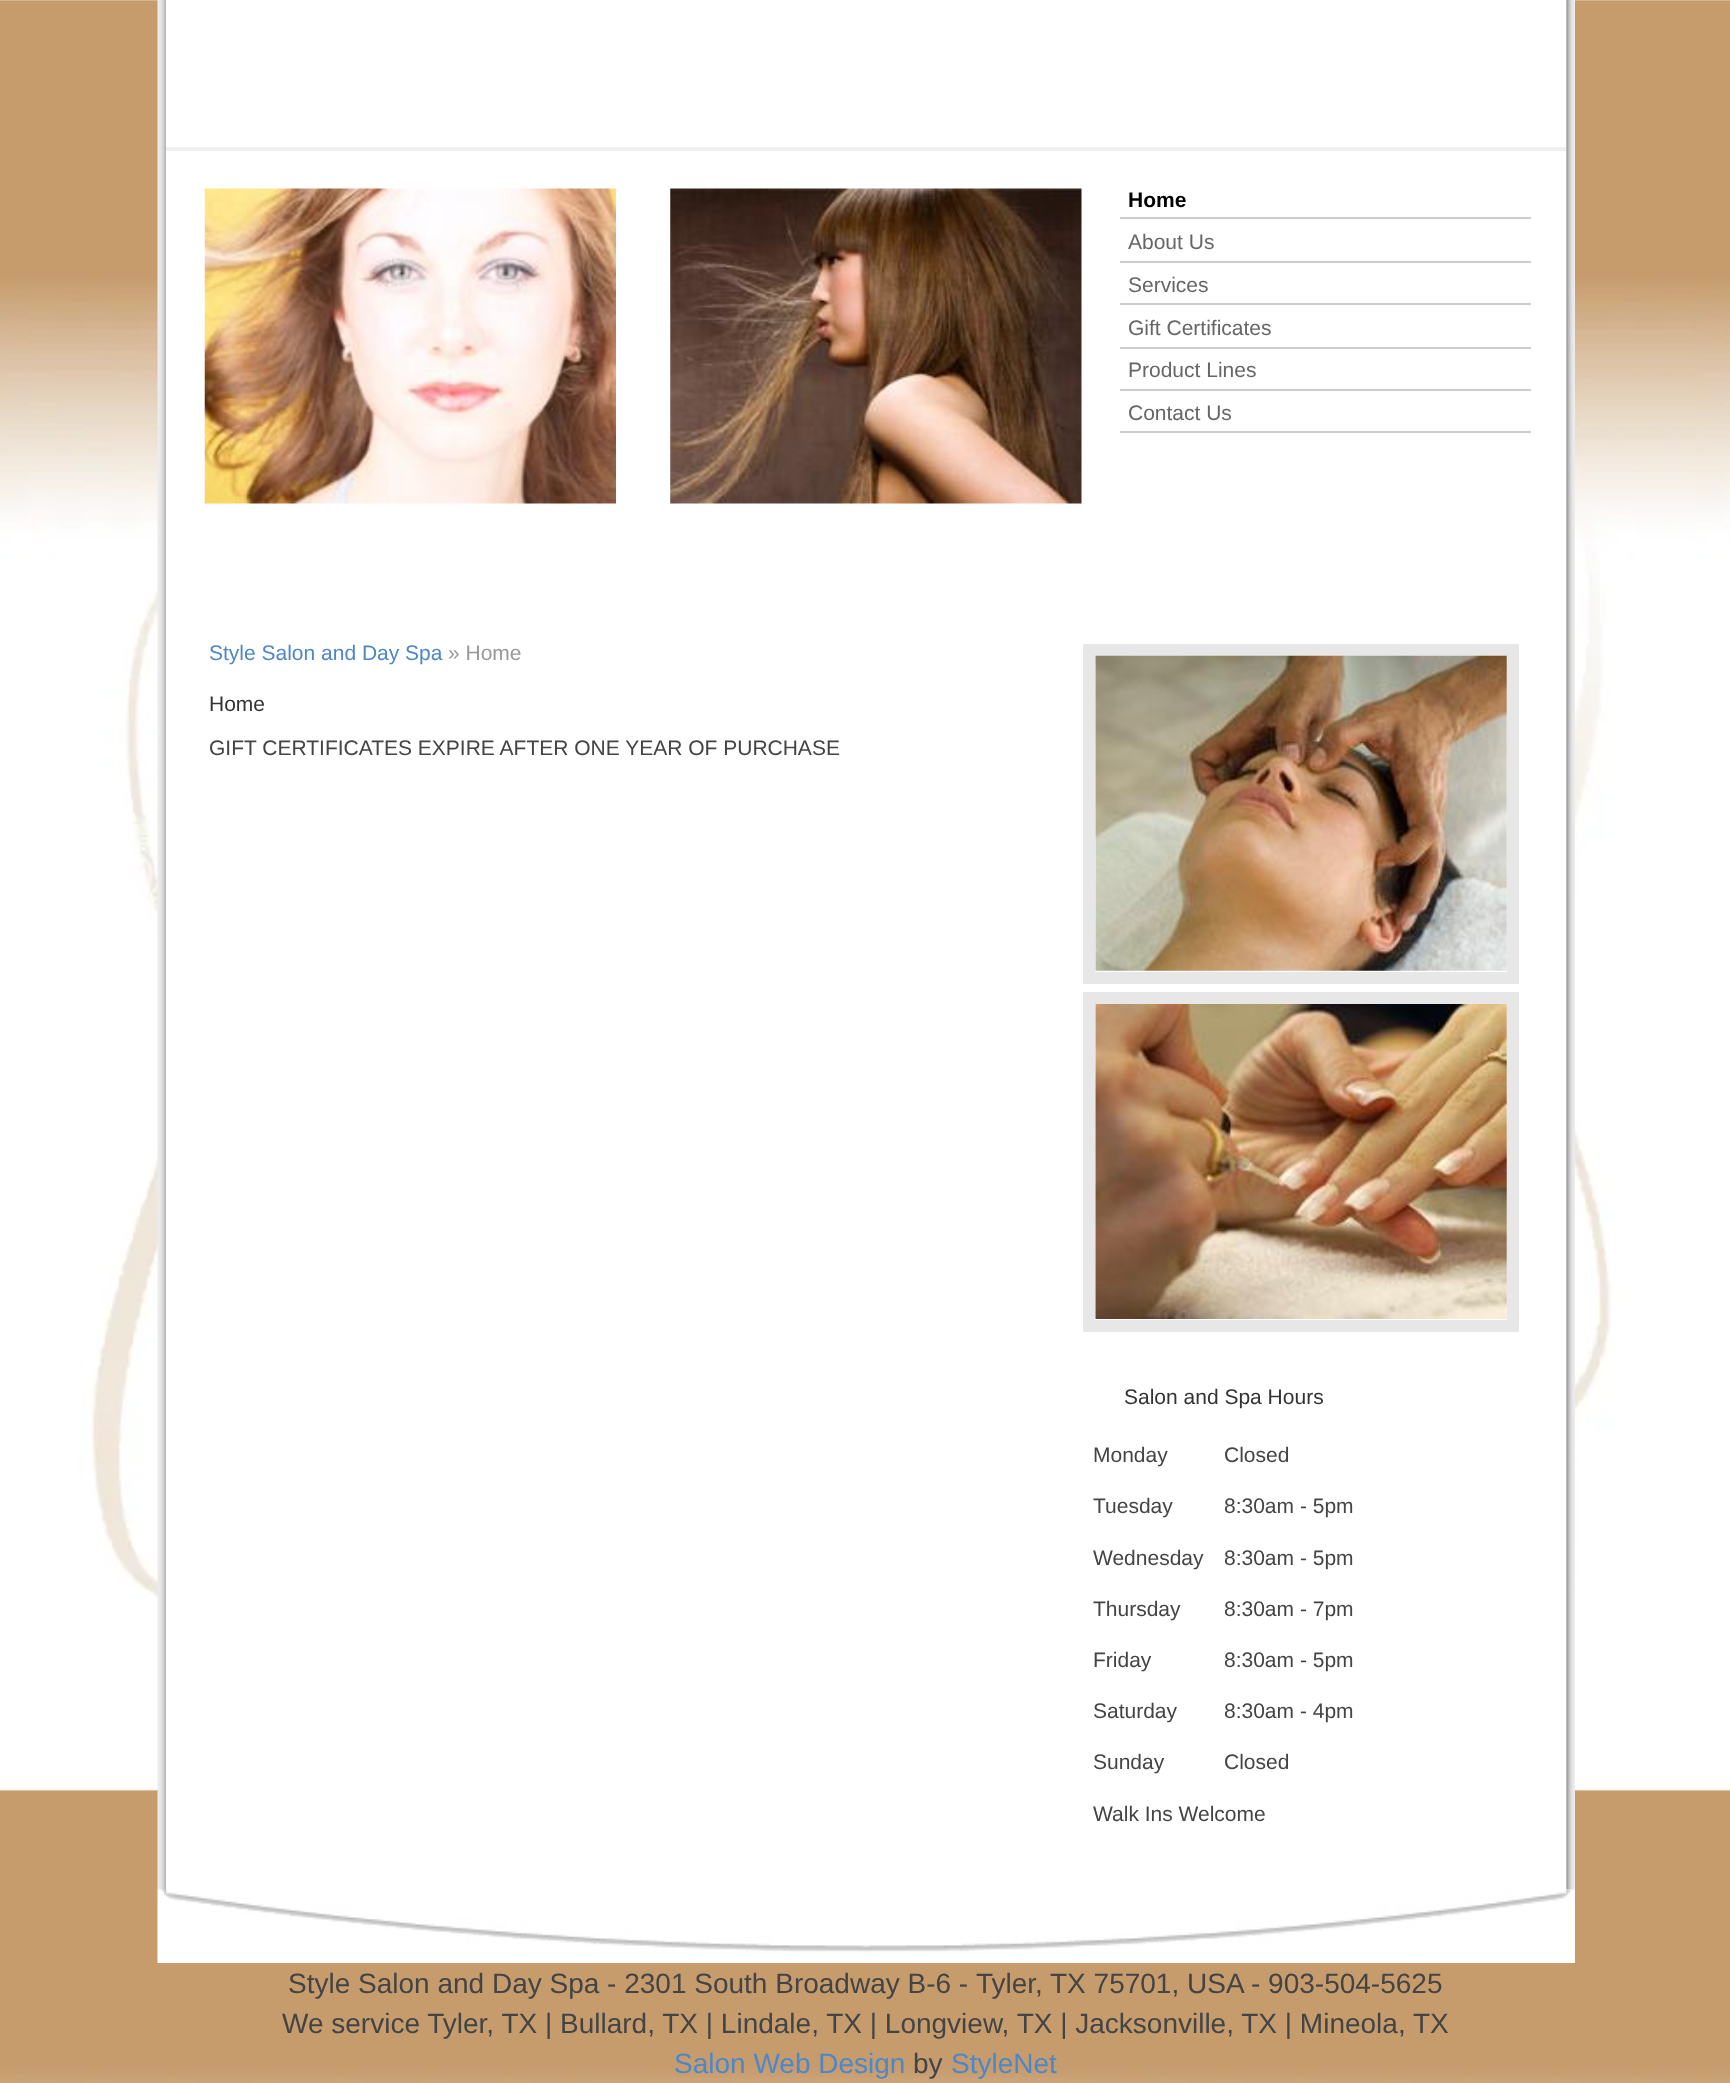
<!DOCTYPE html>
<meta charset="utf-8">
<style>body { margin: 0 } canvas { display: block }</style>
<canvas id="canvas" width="1730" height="2083"></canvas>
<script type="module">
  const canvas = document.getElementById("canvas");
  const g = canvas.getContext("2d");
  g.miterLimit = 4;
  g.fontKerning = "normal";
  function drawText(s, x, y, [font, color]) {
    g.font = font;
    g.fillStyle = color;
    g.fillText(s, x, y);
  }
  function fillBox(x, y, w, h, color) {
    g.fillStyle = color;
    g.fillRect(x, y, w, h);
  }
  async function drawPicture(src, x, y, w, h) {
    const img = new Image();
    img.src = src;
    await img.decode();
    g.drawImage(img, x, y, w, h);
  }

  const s1 = ["bold 21px Liberation Sans", "#000000"];
  const s2 = ["21px Liberation Sans", "#666666"];
  const s3 = ["21px Liberation Sans", "#4D87C7"];
  const s4 = ["21px Liberation Sans", "#999999"];
  const s5 = ["21px Liberation Sans", "#333333"];
  const s6 = ["21px Liberation Sans", "#444444"];
  const s7 = ["28px Liberation Sans", "#444444"];
  const s8 = ["28px Liberation Sans", "#4D87C7"];

  fillBox(0, 0, 1730, 2083, "#FFFFFF");
  await drawPicture("pic1.png", 0, 0, 1730, 2083);
  await drawPicture("pic2.png", 157, 0, 9, 1963);
  await drawPicture("pic8.png", 157, 1889, 1418, 74);
  fillBox(166, 0, 1409, 1890, "#FFFFFF");
  await drawPicture("pic3.png", 1566, 0, 9, 1890);
  fillBox(166, 147, 1400, 4, "#EFEFEF");
  await drawPicture("pic4.png", 204, 188, 412, 316);
  await drawPicture("pic5.png", 670, 188, 412, 316);
  fillBox(1120, 217, 411, 2, "#CCCCCC");
  drawText("Home", 1128, 207, s1);
  fillBox(1120, 261, 411, 2, "#CCCCCC");
  drawText("About Us", 1128, 249, s2);
  fillBox(1120, 303, 411, 2, "#CCCCCC");
  drawText("Services", 1128, 292, s2);
  fillBox(1120, 347, 411, 2, "#CCCCCC");
  drawText("Gift Certificates", 1128, 335, s2);
  fillBox(1120, 389, 411, 2, "#CCCCCC");
  drawText("Product Lines", 1128, 377, s2);
  fillBox(1120, 431, 411, 2, "#CCCCCC");
  drawText("Contact Us", 1128, 420, s2);
  drawText("Style Salon and Day Spa", 209, 660, s3);
  drawText("» Home", 448, 660, s4);
  drawText("Home", 209, 711, s5);
  drawText("GIFT CERTIFICATES EXPIRE AFTER ONE YEAR OF PURCHASE", 209, 755, s6);
  g.strokeStyle = "#E7E7E7";
  g.lineWidth = 12;
  g.strokeRect(1089, 650, 424, 328);
  await drawPicture("pic6.png", 1095, 655, 412, 316);
  g.strokeRect(1089, 998, 424, 328);
  await drawPicture("pic7.png", 1095, 1004, 412, 315);
  drawText("Salon and Spa Hours", 1124, 1404, s5);
  drawText("Monday", 1093, 1462, s6);
  drawText("Closed", 1224, 1462, s6);
  drawText("Tuesday", 1093, 1513, s6);
  drawText("8:30am - 5pm", 1224, 1513, s6);
  drawText("Wednesday", 1093, 1565, s6);
  drawText("8:30am - 5pm", 1224, 1565, s6);
  drawText("Thursday", 1093, 1616, s6);
  drawText("8:30am - 7pm", 1224, 1616, s6);
  drawText("Friday", 1093, 1667, s6);
  drawText("8:30am - 5pm", 1224, 1667, s6);
  drawText("Saturday", 1093, 1718, s6);
  drawText("8:30am - 4pm", 1224, 1718, s6);
  drawText("Sunday", 1093, 1769, s6);
  drawText("Closed", 1224, 1769, s6);
  drawText("Walk Ins Welcome", 1093, 1821, s6);
  drawText("Style Salon and Day Spa - 2301 South Broadway B-6 -", 288, 1993, s7);
  drawText("Tyler", 976, 1993, s7);
  drawText(",", 1035, 1993, s7);
  drawText("TX 75701, USA", 1050, 1993, s7);
  drawText("- 903-504-5625", 1251, 1993, s7);
  drawText("We service Tyler, TX | Bullard, TX | Lindale, TX | Longview, TX | Jacksonville, TX | Mineola, TX", 282, 2033, s7);
  drawText("Salon Web Design", 674, 2073, s8);
  drawText("by", 913, 2073, s7);
  drawText("StyleNet", 951, 2073, s8);
</script>
